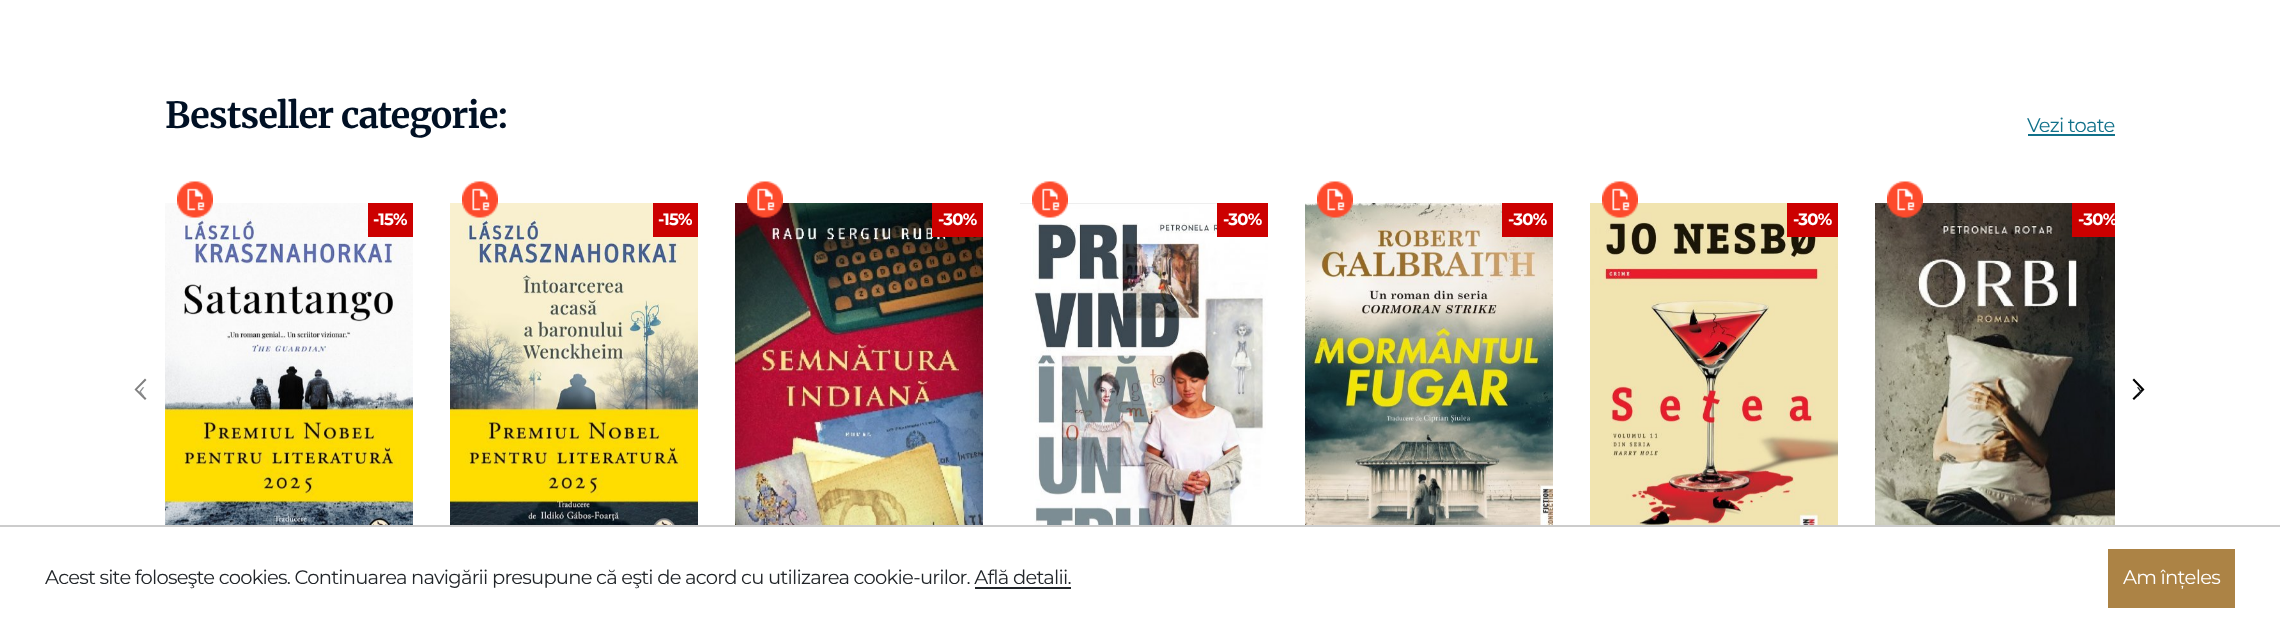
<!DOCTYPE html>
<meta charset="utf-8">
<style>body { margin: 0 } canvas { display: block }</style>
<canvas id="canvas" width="2280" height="629"></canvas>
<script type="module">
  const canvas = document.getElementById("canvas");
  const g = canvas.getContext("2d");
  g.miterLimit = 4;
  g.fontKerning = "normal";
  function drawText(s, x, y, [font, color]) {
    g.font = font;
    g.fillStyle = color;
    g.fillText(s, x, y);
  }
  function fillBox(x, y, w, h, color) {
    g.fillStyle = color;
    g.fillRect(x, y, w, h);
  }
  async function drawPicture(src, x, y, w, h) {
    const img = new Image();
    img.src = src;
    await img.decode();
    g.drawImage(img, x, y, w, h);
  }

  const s1 = ["bold 36px Merriweather", "#001024"];
  const s2 = ["19.5px Montserrat", "#11718A"];
  const s3 = ["bold 16.5px Montserrat", "#FFFFFF"];
  const s4 = ["24px Montserrat", "#909294"];
  const s5 = ["24px Montserrat", "#212529"];
  const s6 = ["19.5px Montserrat", "#212529"];
  const s7 = ["19.5px Montserrat", "#FFFFFF"];

  fillBox(0, 0, 2280, 629, "#FFFFFF");
  g.letterSpacing = "-0.75px";
  drawText("Bestseller categorie:", 165, 128, s1);
  drawText("Vezi toate", 2027, 132, s2);
  fillBox(2028, 134, 87, 2, "#11718A");
  await drawPicture("pic2.png", 165, 203, 248, 322);
  await drawPicture("pic1.png", 177, 181, 36, 37);
  fillBox(368, 203, 45, 34, "#CC0000");
  drawText("-15%", 373, 225, s3);
  await drawPicture("pic4.png", 450, 203, 248, 322);
  await drawPicture("pic3.png", 462, 181, 36, 37);
  fillBox(653, 203, 45, 34, "#CC0000");
  drawText("-15%", 658, 225, s3);
  await drawPicture("pic6.png", 735, 203, 248, 322);
  await drawPicture("pic5.png", 747, 181, 36, 37);
  fillBox(932, 203, 51, 34, "#CC0000");
  drawText("-30%", 938, 225, s3);
  await drawPicture("pic8.png", 1020, 203, 248, 322);
  await drawPicture("pic7.png", 1032, 181, 36, 37);
  fillBox(1217, 203, 51, 34, "#CC0000");
  drawText("-30%", 1223, 225, s3);
  await drawPicture("pic10.png", 1305, 203, 248, 322);
  await drawPicture("pic9.png", 1317, 181, 36, 37);
  fillBox(1502, 203, 51, 34, "#CC0000");
  drawText("-30%", 1508, 225, s3);
  await drawPicture("pic12.png", 1590, 203, 248, 322);
  await drawPicture("pic11.png", 1602, 181, 36, 37);
  fillBox(1787, 203, 51, 34, "#CC0000");
  drawText("-30%", 1793, 225, s3);
  await drawPicture("pic14.png", 1875, 203, 240, 322);
  await drawPicture("pic13.png", 1887, 181, 36, 37);
  fillBox(2072, 203, 43, 34, "#CC0000");
  g.save();
  g.beginPath();
  g.rect(1875, 203, 240, 384);
  g.clip();
  drawText("-30%", 2078, 225, s3);
  g.restore();
  g.fillStyle = "#808080";
  g.beginPath();
  g.moveTo(145, 400);
  g.lineTo(134.5, 389.5);
  g.lineTo(145, 378.5);
  g.lineTo(146.5, 380);
  g.lineTo(137, 389.5);
  g.lineTo(146.5, 398.5);
  g.closePath();
  g.fill();
  drawText("‹", 138, 398, s4);
  g.fillStyle = "#000000";
  g.beginPath();
  g.moveTo(2141.5, 389.5);
  g.lineTo(2132.5, 380);
  g.lineTo(2134, 378.5);
  g.lineTo(2144.5, 389.5);
  g.lineTo(2134, 400);
  g.lineTo(2132.5, 398.5);
  g.closePath();
  g.fill();
  drawText("›", 2136, 398, s5);
  fillBox(0, 525, 2280, 2, "#CCCCCC");
  drawText("Acest site foloseşte cookies. Continuarea navigării presupune că eşti de acord cu utilizarea cookie-urilor. Află detalii.", 45, 584, s6);
  fillBox(975, 587, 96, 2, "#212529");
  fillBox(2108, 549, 127, 59, "#AC8345");
  drawText("Am înțeles", 2123, 584, s7);
</script>
